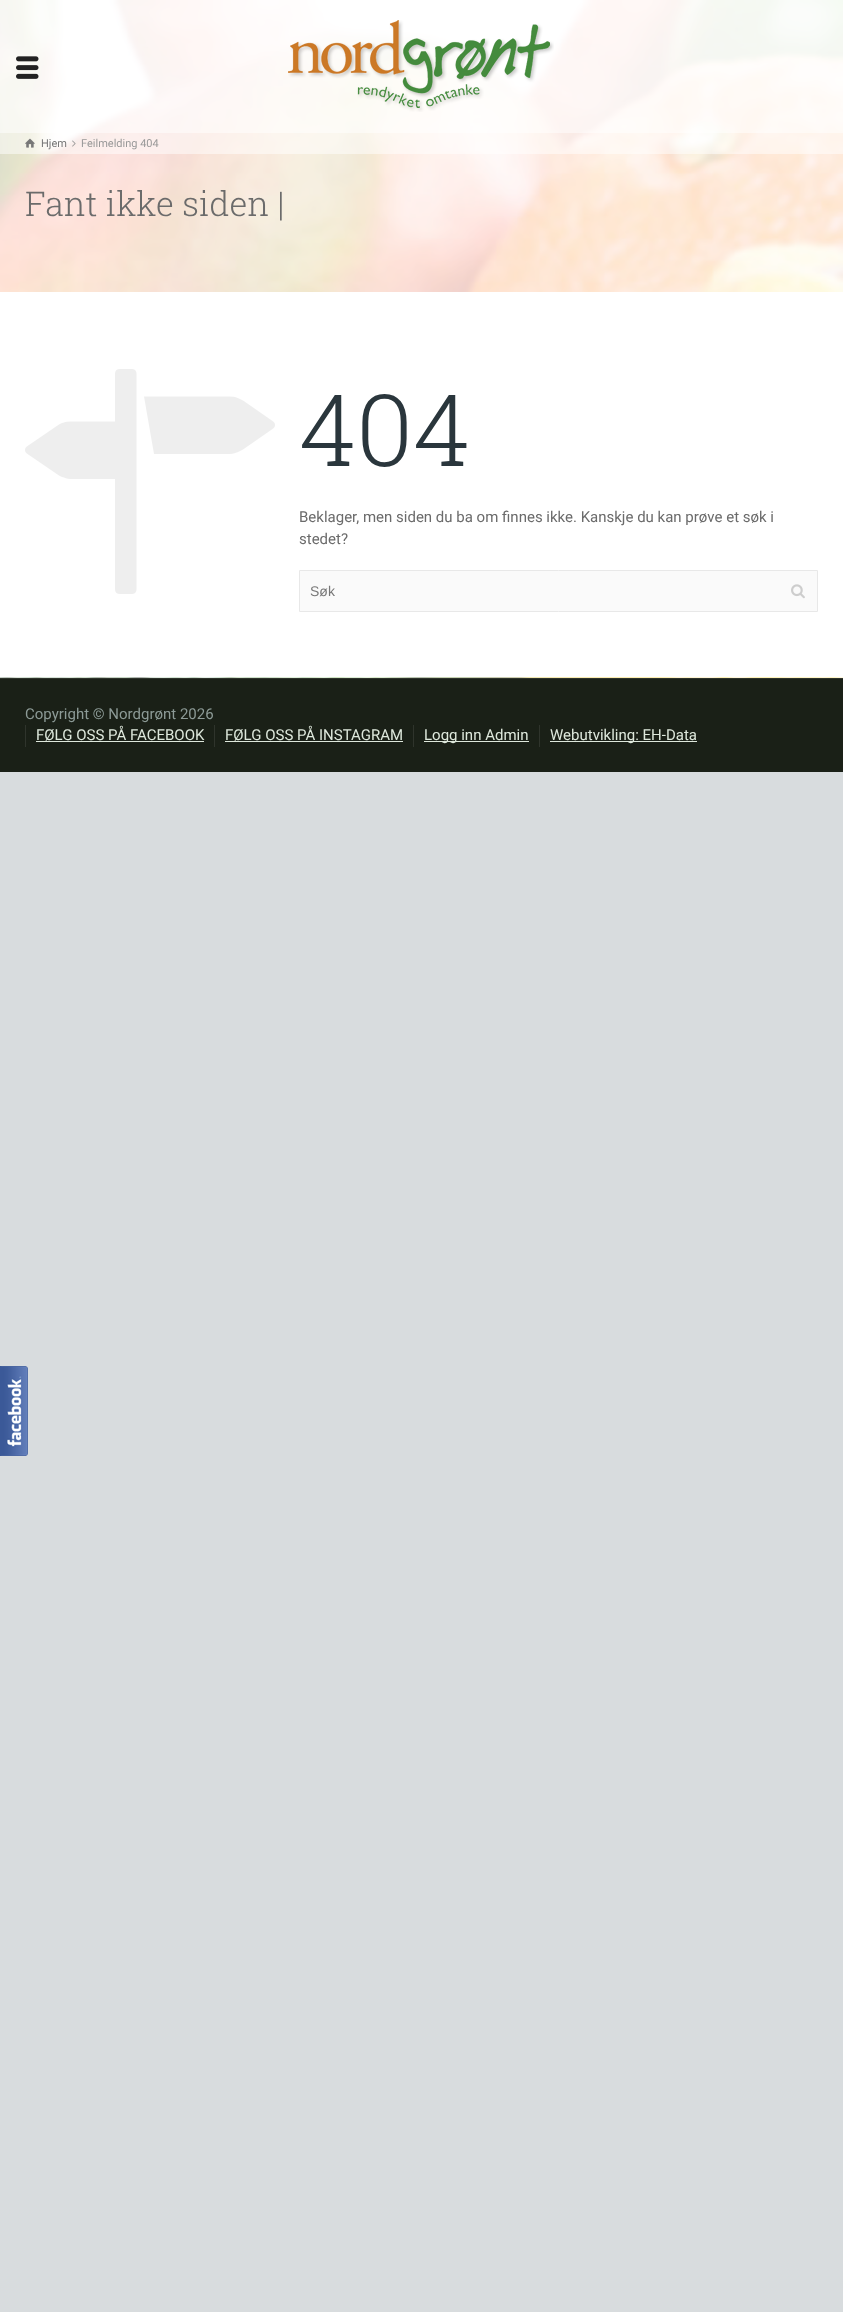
<!DOCTYPE html>
<meta charset="utf-8">
<style>body { margin: 0 } canvas { display: block }</style>
<canvas id="canvas" width="843" height="2312"></canvas>
<script type="module">
  const canvas = document.getElementById("canvas");
  const g = canvas.getContext("2d");
  g.miterLimit = 4;
  g.fontKerning = "normal";
  function drawText(s, x, y, [font, color]) {
    g.font = font;
    g.fillStyle = color;
    g.fillText(s, x, y);
  }
  function fillBox(x, y, w, h, color) {
    g.fillStyle = color;
    g.fillRect(x, y, w, h);
  }
  async function drawPicture(src, x, y, w, h) {
    const img = new Image();
    img.src = src;
    await img.decode();
    g.drawImage(img, x, y, w, h);
  }

  const s1 = ["11px Roboto", "#777777"];
  const s2 = ["11px Roboto", "#999999"];
  const s3 = ["300 34px Roboto Slab", "#6B6B6B"];
  const s4 = ["300 100px Roboto Slab", "#2A363C"];
  const s5 = ["15px Roboto", "#6B6B6B"];
  const s6 = ["14px Liberation Sans", "#777777"];
  const s7 = ["15px Roboto", "#8C9A96"];
  const s8 = ["15px Roboto", "#DEE8DC"];

  fillBox(0, 0, 843, 2312, "#D8DCDE");
  await drawPicture("pic1.png", 0, 0, 843, 678);
  fillBox(0, 0, 843, 133, "rgba(255, 255, 255, 0.84)");
  await drawPicture("pic2.png", 16, 56, 23, 23);
  await drawPicture("pic3.png", 288, 20, 266, 92);
  fillBox(0, 133, 843, 159, "rgba(255, 255, 255, 0.35)");
  fillBox(0, 133, 843, 21, "rgba(255, 255, 255, 0.5)");
  await drawPicture("pic4.png", 25, 138, 10, 10);
  drawText("Hjem", 41, 147, s1);
  await drawPicture("pic5.png", 72, 140, 4, 7);
  drawText("Feilmelding 404", 81, 147, s2);
  drawText("Fant ikke siden |", 25, 216, s3);
  fillBox(0, 292, 843, 385, "#FFFFFF");
  await drawPicture("pic6.png", 25, 369, 250, 225);
  drawText("404", 299, 466, s4);
  drawText("Beklager, men siden du ba om finnes ikke. Kanskje du kan prøve et søk i", 299, 522, s5);
  drawText("stedet?", 299, 544, s5);
  g.fillStyle = "#FAFAFA";
  g.beginPath();
  g.rect(299.5, 570.5, 518, 41);
  g.fill();
  g.strokeStyle = "#E8E8E8";
  g.stroke();
  drawText("Søk", 310, 596, s6);
  await drawPicture("pic7.png", 791, 584, 14, 15);
  fillBox(0, 679, 843, 93, "#1A2017");
  fillBox(0, 678, 843, 1, "#2F342C");
  drawText("Copyright © Nordgrønt 2026", 25, 719, s7);
  fillBox(25, 725, 1, 22, "#2F342C");
  drawText("FØLG OSS PÅ FACEBOOK", 36, 740, s8);
  fillBox(36, 741, 168, 1, "#DEE8DC");
  fillBox(214, 725, 1, 22, "#2F342C");
  drawText("FØLG OSS PÅ INSTAGRAM", 225, 740, s8);
  fillBox(225, 741, 178, 1, "#DEE8DC");
  fillBox(413, 725, 1, 22, "#2F342C");
  fillBox(424, 741, 105, 1, "#DEE8DC");
  drawText("Logg inn Admin", 424, 740, s8);
  fillBox(539, 725, 1, 22, "#2F342C");
  fillBox(550, 741, 147, 1, "#DEE8DC");
  drawText("Webutvikling: EH-Data", 550, 740, s8);
  await drawPicture("pic8.png", 0, 1366, 28, 90);
</script>
